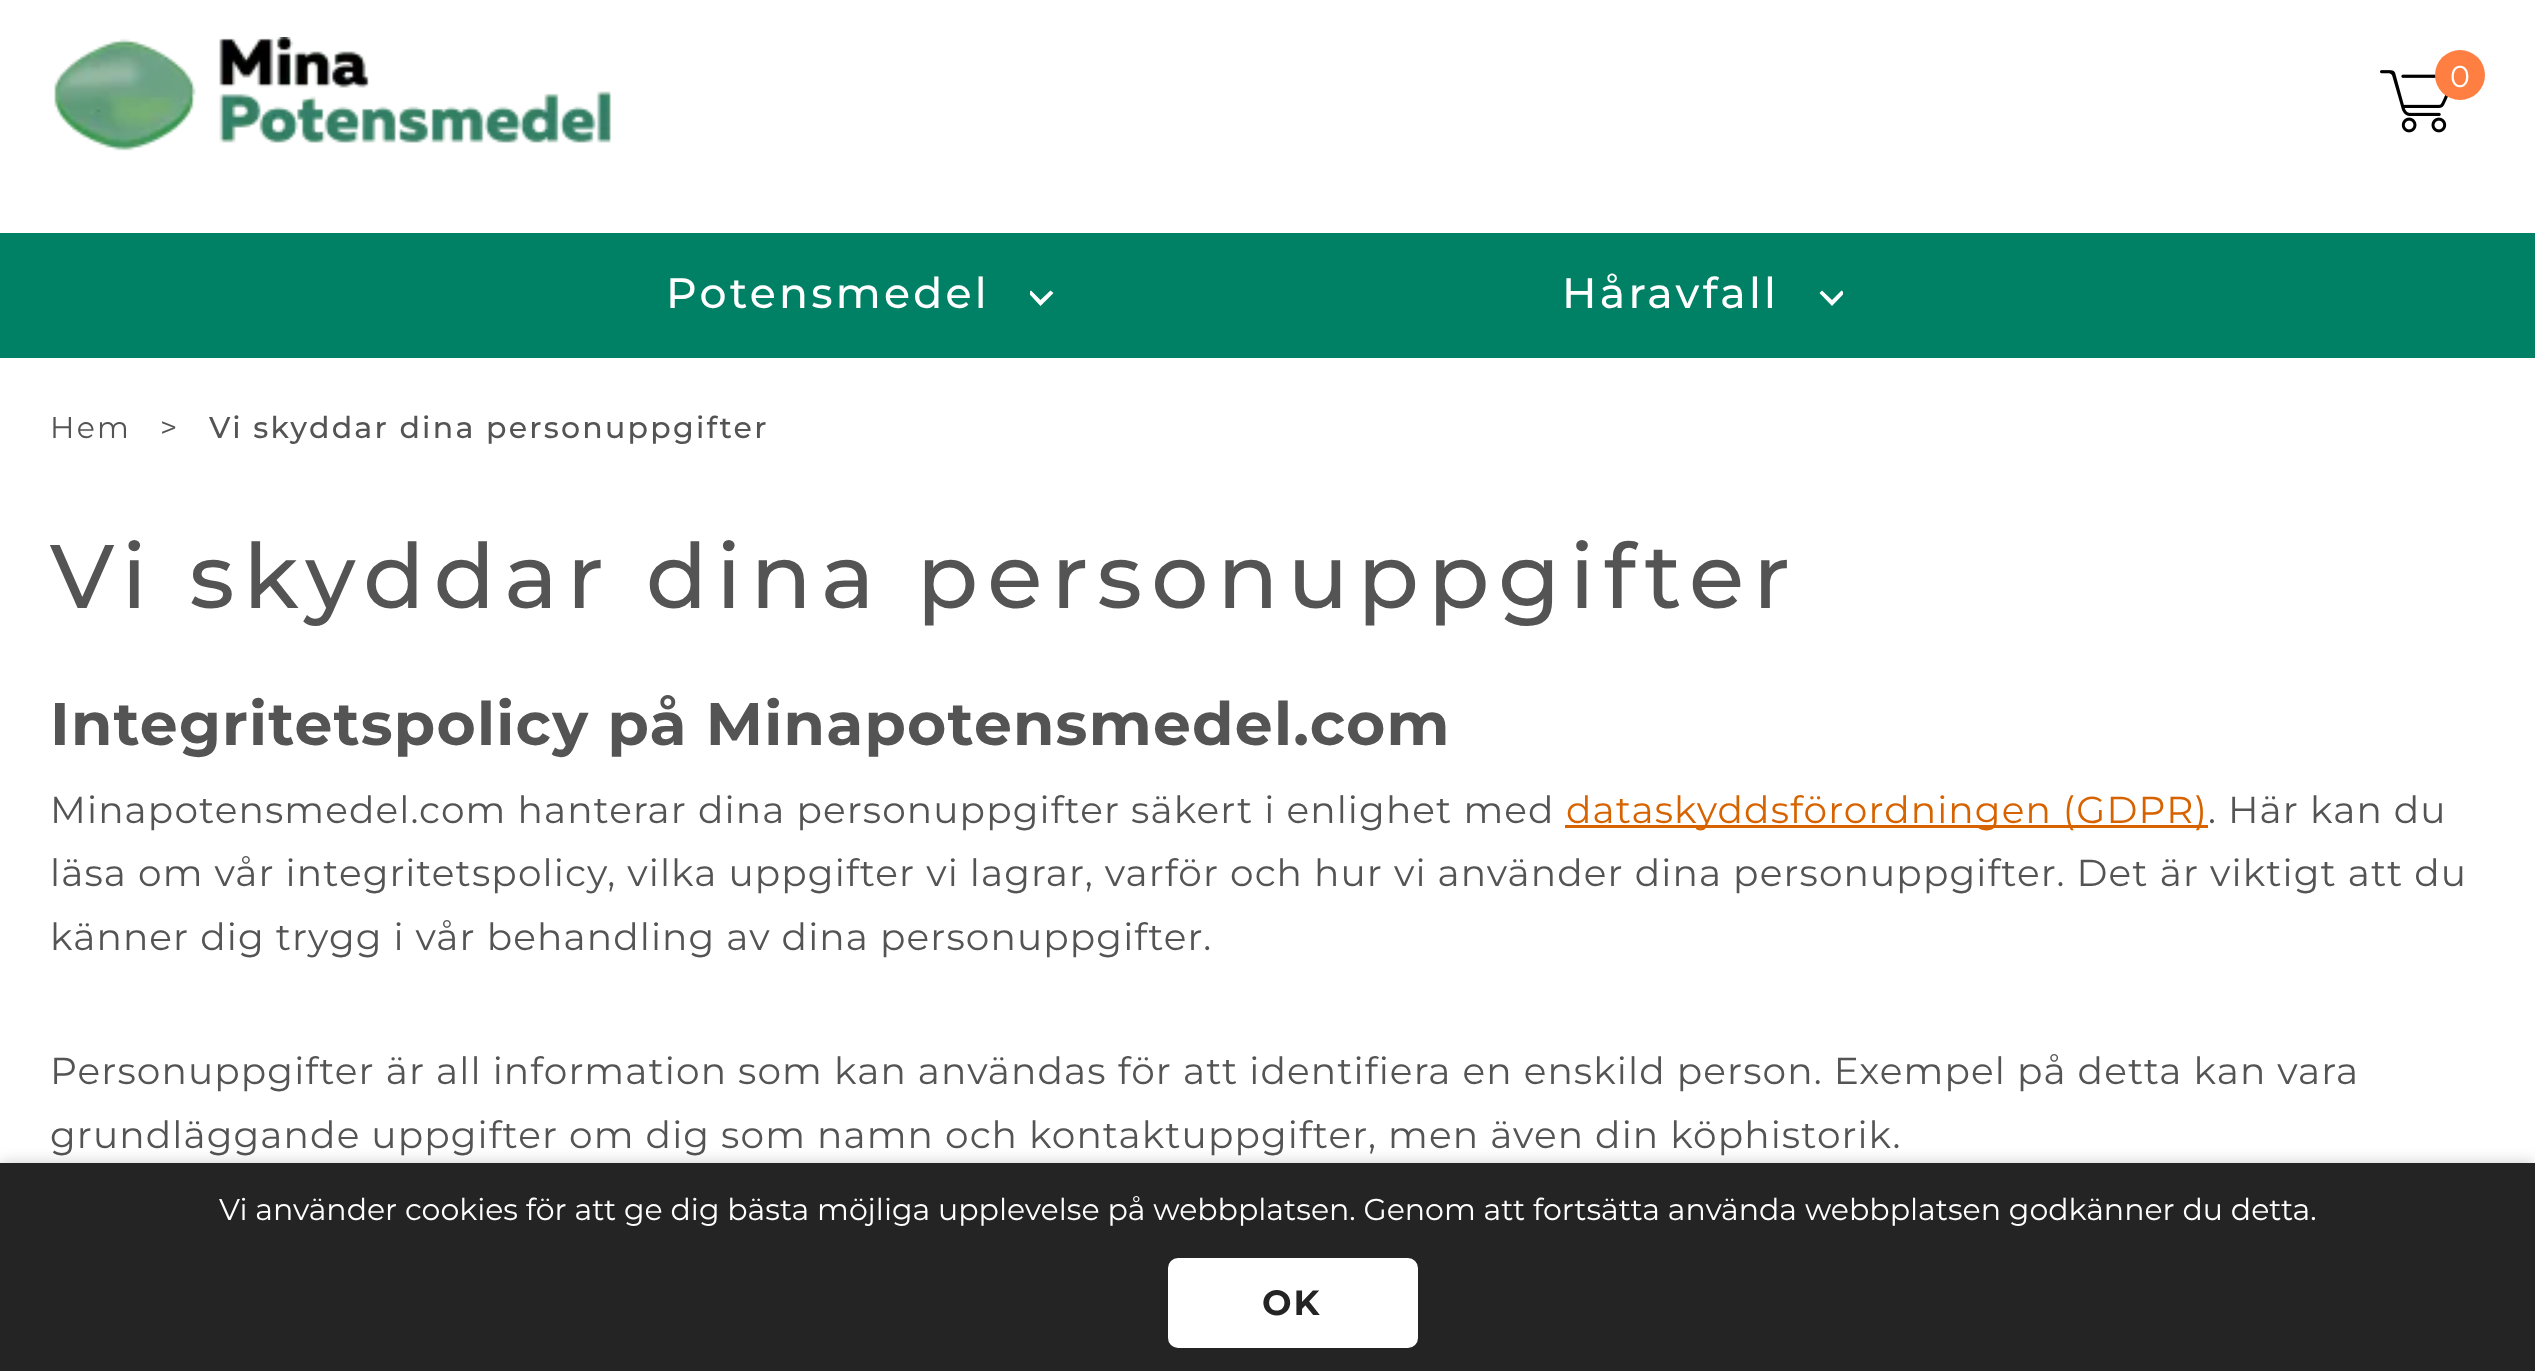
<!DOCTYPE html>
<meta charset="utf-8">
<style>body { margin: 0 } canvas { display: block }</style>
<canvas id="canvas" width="2535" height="1371"></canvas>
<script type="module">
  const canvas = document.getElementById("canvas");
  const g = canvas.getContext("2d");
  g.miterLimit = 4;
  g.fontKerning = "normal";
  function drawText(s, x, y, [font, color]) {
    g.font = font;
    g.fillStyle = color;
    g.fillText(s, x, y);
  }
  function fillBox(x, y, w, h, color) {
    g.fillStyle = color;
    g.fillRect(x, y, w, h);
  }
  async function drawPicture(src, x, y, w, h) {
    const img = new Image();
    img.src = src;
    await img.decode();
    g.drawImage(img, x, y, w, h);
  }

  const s1 = ["30px Montserrat", "#FFFFFF"];
  const s2 = ["500 42.5px Montserrat", "#FFFFFF"];
  const s3 = ["30px Montserrat", "#545454"];
  const s4 = ["500 30px Montserrat", "#545454"];
  const s5 = ["500 90px Montserrat", "#545454"];
  const s6 = ["bold 60px Montserrat", "#545454"];
  const s7 = ["37.5px Montserrat", "#545454"];
  const s8 = ["37.5px Montserrat", "#D76300"];
  const s9 = ["bold 35px Montserrat", "#242424"];

  fillBox(0, 0, 2535, 1371, "#FFFFFF");
  await drawPicture("pic1.png", 54, 37, 557, 114);
  await drawPicture("pic2.png", 2380, 70, 69, 63);
  g.fillStyle = "#FF7F43";
  g.beginPath();
  g.arc(2460, 75, 25, 0, Math.PI * 2);
  g.fill();
  drawText("0", 2450, 87, s1);
  fillBox(0, 233, 2535, 125, "#008064");
  g.letterSpacing = "3.25px";
  drawText("Potensmedel", 666, 308, s2);
  g.save();
  g.beginPath();
  g.rect(1030, 285, 25, 23);
  g.clip();
  g.beginPath();
  g.moveTo(1028.5, 293);
  g.lineTo(1040.5, 306);
  g.lineTo(1053.5, 293);
  g.lineTo(1050.5, 290.5);
  g.lineTo(1040.5, 300);
  g.lineTo(1031, 290.5);
  g.closePath();
  g.fill();
  g.restore();
  drawText("Håravfall", 1562, 308, s2);
  g.save();
  g.beginPath();
  g.rect(1818, 285, 25, 23);
  g.clip();
  g.beginPath();
  g.moveTo(1819.5, 293);
  g.lineTo(1832, 306);
  g.lineTo(1844.5, 293);
  g.lineTo(1841.5, 290.5);
  g.lineTo(1832, 300);
  g.lineTo(1822, 290.5);
  g.closePath();
  g.fill();
  g.restore();
  g.letterSpacing = "2.25px";
  drawText("Hem", 50, 438, s3);
  drawText(">", 160, 438, s3);
  drawText("Vi skyddar dina personuppgifter", 209, 438, s4);
  g.letterSpacing = "9px";
  drawText("Vi skyddar dina personuppgifter", 50, 608, s5);
  g.letterSpacing = "1.2px";
  drawText("Integritetspolicy på Minapotensmedel.com", 50, 745, s6);
  g.letterSpacing = "1.12px";
  drawText("Minapotensmedel.com hanterar dina personuppgifter säkert i enlighet med", 50, 823, s7);
  fillBox(1565, 825, 643, 3, "#D76300");
  drawText("dataskyddsförordningen (GDPR)", 1566, 823, s8);
  drawText(". Här kan du", 2208, 823, s7);
  drawText("läsa om vår integritetspolicy, vilka uppgifter vi lagrar, varför och hur vi använder dina personuppgifter. Det är viktigt att du", 50, 886, s7);
  drawText("känner dig trygg i vår behandling av dina personuppgifter.", 50, 950, s7);
  drawText("Personuppgifter är all information som kan användas för att identifiera en enskild person. Exempel på detta kan vara", 50, 1084, s7);
  drawText("grundläggande uppgifter om dig som namn och kontaktuppgifter, men även din köphistorik.", 50, 1148, s7);
  g.fillStyle = "rgba(0, 0, 0, 0.2)";
  g.filter = "blur(7.5px)";
  g.beginPath();
  g.rect(0, 1163, 2535, 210);
  g.fill();
  g.filter = "none";
  fillBox(0, 1163, 2535, 208, "#242424");
  g.letterSpacing = "0px";
  drawText("Vi använder cookies för att ge dig bästa möjliga upplevelse på webbplatsen. Genom att fortsätta använda webbplatsen godkänner du detta.", 219, 1220, s1);
  g.beginPath();
  g.roundRect(1169.5, 1259.5, 247, 87, 8.5);
  g.fill();
  g.strokeStyle = "#FFFFFF";
  g.lineWidth = 3;
  g.stroke();
  g.letterSpacing = "2px";
  drawText("OK", 1262, 1315, s9);
</script>
